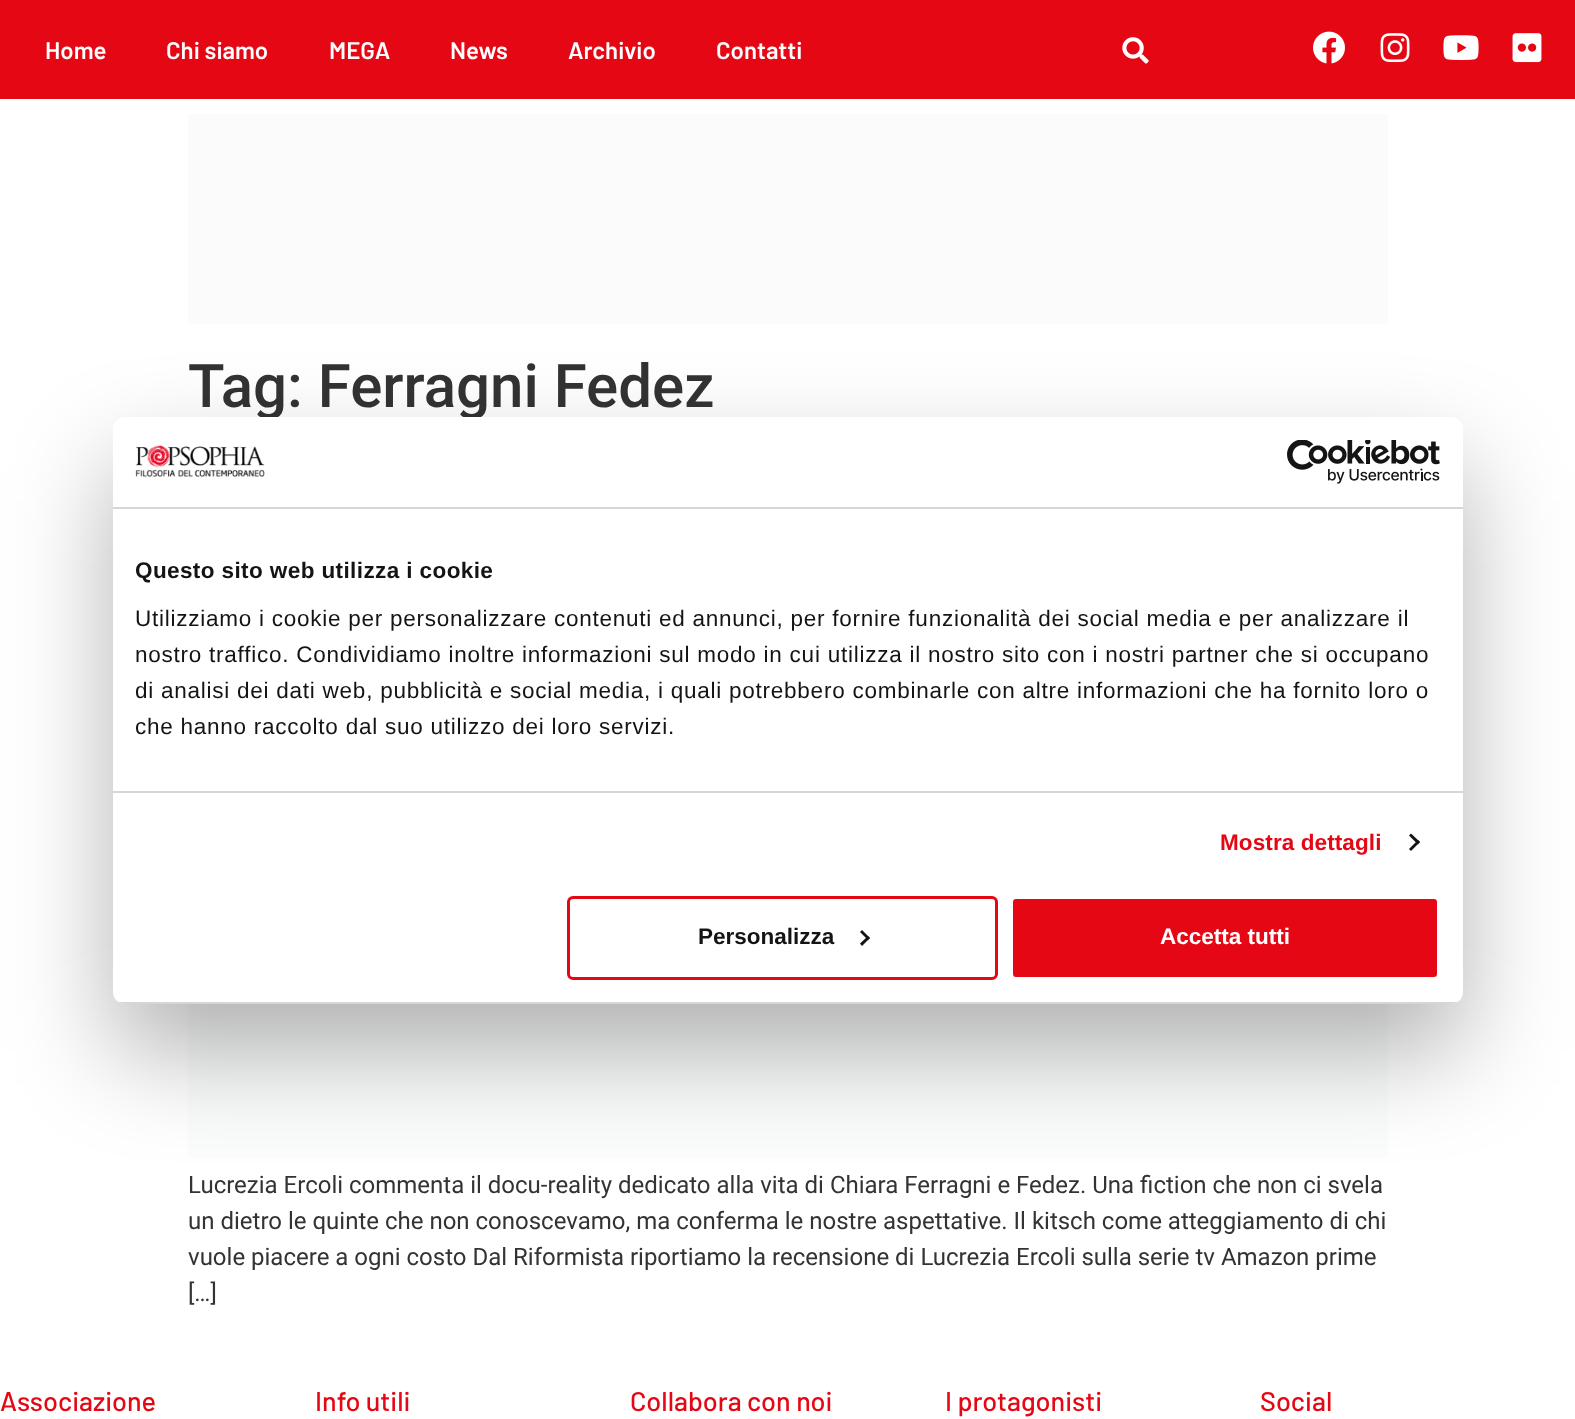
<!DOCTYPE html>
<meta charset="utf-8">
<style>body { margin: 0 } canvas { display: block }</style>
<canvas id="canvas" width="1575" height="1419"></canvas>
<script type="module">
  const canvas = document.getElementById("canvas");
  const g = canvas.getContext("2d");
  g.miterLimit = 4;
  g.fontKerning = "normal";
  function drawText(s, x, y, [font, color]) {
    g.font = font;
    g.fillStyle = color;
    g.fillText(s, x, y);
  }
  function fillBox(x, y, w, h, color) {
    g.fillStyle = color;
    g.fillRect(x, y, w, h);
  }
  function fillRounded(x, y, w, h, r, color) {
    g.fillStyle = color;
    g.beginPath();
    g.roundRect(x, y, w, h, r);
    g.fill();
  }
  async function drawPicture(src, x, y, w, h) {
    const img = new Image();
    img.src = src;
    await img.decode();
    g.drawImage(img, x, y, w, h);
  }

  const s1 = ["600 24px Barlow", "#FFFFFF"];
  const s2 = ["500 60px Roboto", "#333333"];
  const s3 = ["24px Roboto", "#333333"];
  const s4 = ["bold 22.5px Liberation Sans", "#141414"];
  const s5 = ["22.5px Liberation Sans", "#141414"];
  const s6 = ["bold 22.5px Liberation Sans", "#E50714"];
  const s7 = ["bold 22.5px Liberation Sans", "#FFFFFF"];
  const s8 = ["500 27px Barlow", "#E50714"];

  fillBox(0, 0, 1575, 1419, "#FFFFFF");
  fillBox(0, 0, 1575, 99, "#E50714");
  drawText("Home", 45, 59, s1);
  drawText("Chi siamo", 166, 59, s1);
  drawText("MEGA", 329, 59, s1);
  drawText("News", 450, 59, s1);
  drawText("Archivio", 568, 59, s1);
  drawText("Contatti", 716, 59, s1);
  await drawPicture("pic1.png", 1122, 37, 27, 27);
  await drawPicture("pic2.png", 1313, 31, 32, 33);
  await drawPicture("pic3.png", 1380, 33, 30, 30);
  await drawPicture("pic4.png", 1443, 35, 36, 25);
  await drawPicture("pic5.png", 1512, 33, 30, 30);
  fillBox(188, 114, 1200, 210, "#FBFBFC");
  drawText("Tag: Ferragni Fedez", 188, 407, s2);
  fillBox(188, 1004, 1200, 154, "#FBFCFC");
  drawText("Lucrezia Ercoli commenta il docu-reality dedicato alla vita di Chiara Ferragni e Fedez. Una fiction che non ci svela", 188, 1193, s3);
  drawText("un dietro le quinte che non conoscevamo, ma conferma le nostre aspettative. Il kitsch come atteggiamento di chi", 188, 1229, s3);
  drawText("vuole piacere a ogni costo Dal Riformista riportiamo la recensione di Lucrezia Ercoli sulla serie tv Amazon prime", 188, 1265, s3);
  drawText("[…]", 188, 1301, s3);
  g.fillStyle = "rgba(0, 0, 0, 0.3)";
  g.filter = "blur(51px)";
  g.beginPath();
  g.roundRect(113, 465, 1350, 587, 12);
  g.fill();
  g.filter = "none";
  fillRounded(113, 417, 1350, 587, 12, "#FFFFFF");
  fillBox(113, 507, 1350, 2, "#D6D6D6");
  await drawPicture("pic6.png", 135, 445, 130, 33);
  await drawPicture("pic7.png", 1287, 440, 153, 44);
  fillBox(113, 791, 1350, 2, "#D6D6D6");
  g.letterSpacing = "0.4px";
  drawText("Questo sito web utilizza i cookie", 135, 578, s4);
  g.letterSpacing = "0.75px";
  drawText("Utilizziamo i cookie per personalizzare contenuti ed annunci, per fornire funzionalità dei social media e per analizzare il", 135, 626, s5);
  drawText("nostro traffico. Condividiamo inoltre informazioni sul modo in cui utilizza il nostro sito con i nostri partner che si occupano", 135, 662, s5);
  drawText("di analisi dei dati web, pubblicità e social media, i quali potrebbero combinarle con altre informazioni che ha fornito loro o", 135, 698, s5);
  drawText("che hanno raccolto dal suo utilizzo dei loro servizi.", 135, 734, s5);
  g.letterSpacing = "0.1px";
  drawText("Mostra dettagli", 1220, 850, s6);
  g.fillStyle = "#141414";
  g.beginPath();
  g.moveTo(1411, 833.5);
  g.lineTo(1420, 842);
  g.lineTo(1418, 844.5);
  g.lineTo(1409, 835.5);
  g.closePath();
  g.fill();
  g.beginPath();
  g.moveTo(1418, 840);
  g.lineTo(1420, 842);
  g.lineTo(1411, 851);
  g.lineTo(1409, 849);
  g.closePath();
  g.fill();
  g.save();
  g.beginPath();
  g.roundRect(113, 417, 1350, 587, 12);
  g.clip();
  fillBox(113, 1002, 1350, 2, "#D6D6D6");
  g.restore();
  g.beginPath();
  g.roundRect(568.5, 897.5, 428, 81, 4.5);
  g.strokeStyle = "#E50714";
  g.lineWidth = 3;
  g.stroke();
  g.letterSpacing = "0px";
  drawText("Personalizza", 698, 944, s4);
  g.beginPath();
  g.moveTo(862, 930);
  g.lineTo(870, 938);
  g.lineTo(868, 940);
  g.lineTo(860, 932);
  g.closePath();
  g.fill();
  g.beginPath();
  g.moveTo(868, 936);
  g.lineTo(870, 938);
  g.lineTo(862, 946);
  g.lineTo(860, 943.5);
  g.closePath();
  g.fill();
  g.fillStyle = "#E50714";
  g.beginPath();
  g.roundRect(1011.5, 897.5, 427, 81, 4.5);
  g.fill();
  g.strokeStyle = "#FFFFFF";
  g.stroke();
  drawText("Accetta tutti", 1160, 944, s7);
  drawText("Associazione", 0, 1411, s8);
  drawText("Info utili", 315, 1411, s8);
  drawText("Collabora con noi", 630, 1411, s8);
  drawText("I protagonisti", 945, 1411, s8);
  drawText("Social", 1260, 1411, s8);
</script>
